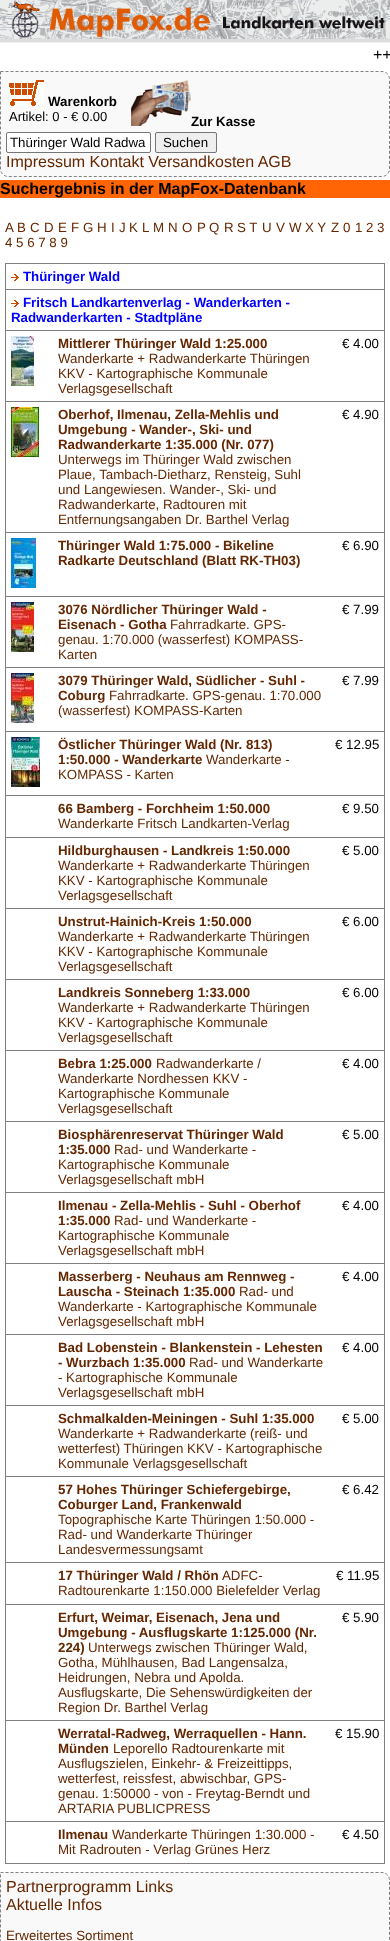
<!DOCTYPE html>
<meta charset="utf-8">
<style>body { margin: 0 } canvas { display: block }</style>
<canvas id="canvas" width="390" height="1941"></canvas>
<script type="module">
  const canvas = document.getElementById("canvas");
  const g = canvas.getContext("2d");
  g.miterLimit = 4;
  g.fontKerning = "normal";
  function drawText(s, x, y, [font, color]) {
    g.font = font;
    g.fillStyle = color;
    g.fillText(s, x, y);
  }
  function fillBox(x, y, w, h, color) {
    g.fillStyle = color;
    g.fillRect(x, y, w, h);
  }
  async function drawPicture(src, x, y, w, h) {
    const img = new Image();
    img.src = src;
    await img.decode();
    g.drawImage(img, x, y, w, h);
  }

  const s1 = ["16px Liberation Sans", "#000000"];
  const s2 = ["bold 13.3px Liberation Sans", "#000000"];
  const s3 = ["13px Liberation Sans", "#000000"];
  const s4 = ["13.3px Liberation Sans", "#000000"];
  const s5 = ["16px Liberation Sans", "#642702"];
  const s6 = ["bold 16px Liberation Sans", "#000000"];
  const s7 = ["13.3px Liberation Sans", "#642702"];
  const s8 = ["bold 13.3px Liberation Sans", "#0000FF"];
  const s9 = ["bold 13.3px Liberation Sans", "#642702"];

  fillBox(0, 0, 390, 1941, "#FFFFFF");
  fillBox(0, 42, 390, 1, "#F1F1F1");
  await drawPicture("pic1.png", 0, 0, 390, 39);
  fillBox(0, 39, 390, 3, "#DDDDDD");
  drawText("++", 373, 60, s1);
  g.fillStyle = "#F9F9F9";
  g.beginPath();
  g.roundRect(0, 71, 390, 106, [0, 8, 8, 8]);
  g.fill();
  g.beginPath();
  g.moveTo(0.5, 71.5);
  g.lineTo(382, 71.5);
  g.bezierCurveTo(386, 71.5, 389.5, 75, 389.5, 79);
  g.lineTo(389.5, 169);
  g.bezierCurveTo(389.5, 173, 386, 176.5, 382, 176.5);
  g.lineTo(8, 176.5);
  g.bezierCurveTo(4, 176.5, 0.5, 173, 0.5, 169);
  g.closePath();
  g.strokeStyle = "#808080";
  g.setLineDash([3, 2]);
  g.stroke();
  await drawPicture("pic2.png", 9, 80, 35, 26);
  drawText("Warenkorb", 48, 106, s2);
  drawText("Artikel: 0 - € 0.00", 9, 121, s3);
  await drawPicture("pic3.png", 131, 80, 60, 46);
  drawText("Zur Kasse", 191, 126, s2);
  g.fillStyle = "#FFFFFF";
  g.beginPath();
  g.roundRect(6.5, 132.5, 144, 20, 1.5);
  g.fill();
  g.strokeStyle = "#767676";
  g.setLineDash([]);
  g.stroke();
  drawText("Thüringer Wald Radwa", 10, 147, s4);
  g.fillStyle = "#EFEFEF";
  g.beginPath();
  g.roundRect(155.5, 132.5, 61, 20, 1.5);
  g.fill();
  g.stroke();
  drawText("Suchen", 163, 147, s4);
  drawText("Impressum Kontakt Versandkosten AGB", 6, 167, s5);
  fillBox(0, 180, 390, 18, "#FF6405");
  drawText("Suchergebnis in der MapFox-Datenbank", 0, 194, s6);
  drawText("A", 5, 232, s7);
  drawText("B", 17, 232, s7);
  drawText("C", 30, 232, s7);
  drawText("D", 44, 232, s7);
  drawText("E", 58, 232, s7);
  drawText("F", 71, 232, s7);
  drawText("G", 83, 232, s7);
  drawText("H", 97, 232, s7);
  drawText("I", 111, 232, s7);
  drawText("J", 119, 232, s7);
  drawText("K", 129, 232, s7);
  drawText("L", 142, 232, s7);
  drawText("M", 153, 232, s7);
  drawText("N", 168, 232, s7);
  drawText("O", 182, 232, s7);
  drawText("P", 197, 232, s7);
  drawText("Q", 209, 232, s7);
  drawText("R", 224, 232, s7);
  drawText("S T", 237, 232, s7);
  drawText("U", 262, 232, s7);
  drawText("V", 276, 232, s7);
  drawText("W", 289, 232, s7);
  drawText("X Y", 305, 232, s7);
  drawText("Z", 331, 232, s7);
  drawText("0", 343, 232, s7);
  drawText("1", 355, 232, s7);
  drawText("2", 366, 232, s7);
  drawText("3", 377, 232, s7);
  drawText("4 5 6 7 8 9", 5, 247, s7);
  fillBox(5, 263, 380, 1, "#808080");
  fillBox(384, 263, 1, 1601, "#808080");
  fillBox(5, 1863, 380, 1, "#808080");
  fillBox(5, 263, 1, 1601, "#808080");
  await drawPicture("pic4.png", 11, 274, 8, 7);
  drawText("Thüringer Wald", 23, 281, s8);
  fillBox(5, 289, 380, 1, "#808080");
  await drawPicture("pic4.png", 11, 300, 8, 7);
  drawText("Fritsch Landkartenverlag - Wanderkarten -", 23, 307, s8);
  drawText("Radwanderkarten - Stadtpläne", 11, 322, s8);
  await drawPicture("pic5.png", 11, 336, 23, 50);
  drawText("Mittlerer Thüringer Wald 1:25.000", 58, 348, s9);
  drawText("Wanderkarte + Radwanderkarte Thüringen", 58, 363, s7);
  drawText("KKV - Kartographische Kommunale", 58, 378, s7);
  drawText("Verlagsgesellschaft", 58, 393, s7);
  fillBox(5, 330, 380, 1, "#808080");
  drawText("€ 4.00", 342, 348, s4);
  await drawPicture("pic6.png", 11, 407, 28, 50);
  drawText("Oberhof, Ilmenau, Zella-Mehlis und", 58, 419, s9);
  drawText("Umgebung - Wander-, Ski- und", 58, 434, s9);
  drawText("Radwanderkarte 1:35.000 (Nr. 077)", 58, 449, s9);
  drawText("Unterwegs im Thüringer Wald zwischen", 58, 464, s7);
  drawText("Plaue, Tambach-Dietharz, Rensteig, Suhl", 58, 479, s7);
  drawText("und Langewiesen. Wander-, Ski- und", 58, 494, s7);
  drawText("Radwanderkarte, Radtouren mit", 58, 509, s7);
  drawText("Entfernungsangaben Dr. Barthel Verlag", 58, 524, s7);
  fillBox(5, 401, 380, 1, "#808080");
  drawText("€ 4.90", 342, 419, s4);
  await drawPicture("pic7.png", 11, 538, 25, 50);
  drawText("Thüringer Wald 1:75.000 - Bikeline", 58, 550, s9);
  drawText("Radkarte Deutschland (Blatt RK-TH03)", 58, 565, s9);
  fillBox(5, 532, 380, 1, "#808080");
  drawText("€ 6.90", 342, 550, s4);
  await drawPicture("pic8.png", 11, 602, 23, 50);
  drawText("3076 Nördlicher Thüringer Wald -", 58, 614, s9);
  drawText("Eisenach - Gotha", 58, 629, s9);
  drawText("Fahrradkarte. GPS-", 170, 629, s7);
  drawText("genau. 1:70.000 (wasserfest) KOMPASS-", 58, 644, s7);
  drawText("Karten", 58, 659, s7);
  fillBox(5, 596, 380, 1, "#808080");
  drawText("€ 7.99", 342, 614, s4);
  await drawPicture("pic9.png", 11, 673, 23, 50);
  drawText("3079 Thüringer Wald, Südlicher - Suhl -", 58, 685, s9);
  drawText("Coburg", 58, 700, s9);
  drawText("Fahrradkarte. GPS-genau. 1:70.000", 109, 700, s7);
  drawText("(wasserfest) KOMPASS-Karten", 58, 715, s7);
  fillBox(5, 667, 380, 1, "#808080");
  drawText("€ 7.99", 342, 685, s4);
  await drawPicture("pic10.png", 11, 737, 29, 50);
  drawText("Östlicher Thüringer Wald (Nr. 813)", 58, 749, s9);
  drawText("1:50.000 - Wanderkarte", 58, 764, s9);
  drawText("Wanderkarte -", 206, 764, s7);
  drawText("KOMPASS - Karten", 58, 779, s7);
  fillBox(5, 731, 380, 1, "#808080");
  drawText("€ 12.95", 335, 749, s4);
  drawText("66 Bamberg - Forchheim 1:50.000", 58, 813, s9);
  drawText("Wanderkarte Fritsch Landkarten-Verlag", 58, 828, s7);
  fillBox(5, 795, 380, 1, "#808080");
  drawText("€ 9.50", 342, 813, s4);
  drawText("Hildburghausen - Landkreis 1:50.000", 58, 855, s9);
  drawText("Wanderkarte + Radwanderkarte Thüringen", 58, 870, s7);
  drawText("KKV - Kartographische Kommunale", 58, 885, s7);
  drawText("Verlagsgesellschaft", 58, 900, s7);
  fillBox(5, 837, 380, 1, "#808080");
  drawText("€ 5.00", 342, 855, s4);
  drawText("Unstrut-Hainich-Kreis 1:50.000", 58, 926, s9);
  drawText("Wanderkarte + Radwanderkarte Thüringen", 58, 941, s7);
  drawText("KKV - Kartographische Kommunale", 58, 956, s7);
  drawText("Verlagsgesellschaft", 58, 971, s7);
  fillBox(5, 908, 380, 1, "#808080");
  drawText("€ 6.00", 342, 926, s4);
  drawText("Landkreis Sonneberg 1:33.000", 58, 997, s9);
  drawText("Wanderkarte + Radwanderkarte Thüringen", 58, 1012, s7);
  drawText("KKV - Kartographische Kommunale", 58, 1027, s7);
  drawText("Verlagsgesellschaft", 58, 1042, s7);
  fillBox(5, 979, 380, 1, "#808080");
  drawText("€ 6.00", 342, 997, s4);
  drawText("Bebra 1:25.000", 58, 1068, s9);
  drawText("Radwanderkarte /", 156, 1068, s7);
  drawText("Wanderkarte Nordhessen KKV -", 58, 1083, s7);
  drawText("Kartographische Kommunale", 58, 1098, s7);
  drawText("Verlagsgesellschaft", 58, 1113, s7);
  fillBox(5, 1050, 380, 1, "#808080");
  drawText("€ 4.00", 342, 1068, s4);
  drawText("Biosphärenreservat Thüringer Wald", 58, 1139, s9);
  drawText("1:35.000", 58, 1154, s9);
  drawText("Rad- und Wanderkarte -", 114, 1154, s7);
  drawText("Kartographische Kommunale", 58, 1169, s7);
  drawText("Verlagsgesellschaft mbH", 58, 1184, s7);
  fillBox(5, 1121, 380, 1, "#808080");
  drawText("€ 5.00", 342, 1139, s4);
  drawText("Ilmenau - Zella-Mehlis - Suhl - Oberhof", 58, 1210, s9);
  drawText("1:35.000", 58, 1225, s9);
  drawText("Rad- und Wanderkarte -", 114, 1225, s7);
  drawText("Kartographische Kommunale", 58, 1240, s7);
  drawText("Verlagsgesellschaft mbH", 58, 1255, s7);
  fillBox(5, 1192, 380, 1, "#808080");
  drawText("€ 4.00", 342, 1210, s4);
  drawText("Masserberg - Neuhaus am Rennweg -", 58, 1281, s9);
  drawText("Lauscha - Steinach 1:35.000", 58, 1296, s9);
  drawText("Rad- und", 239, 1296, s7);
  drawText("Wanderkarte - Kartographische Kommunale", 58, 1311, s7);
  drawText("Verlagsgesellschaft mbH", 58, 1326, s7);
  fillBox(5, 1263, 380, 1, "#808080");
  drawText("€ 4.00", 342, 1281, s4);
  drawText("Bad Lobenstein - Blankenstein - Lehesten", 58, 1352, s9);
  drawText("- Wurzbach 1:35.000", 58, 1367, s9);
  drawText("Rad- und Wanderkarte", 189, 1367, s7);
  drawText("- Kartographische Kommunale", 58, 1382, s7);
  drawText("Verlagsgesellschaft mbH", 58, 1397, s7);
  fillBox(5, 1334, 380, 1, "#808080");
  drawText("€ 4.00", 342, 1352, s4);
  drawText("Schmalkalden-Meiningen - Suhl 1:35.000", 58, 1423, s9);
  drawText("Wanderkarte + Radwanderkarte (reiß- und", 58, 1438, s7);
  drawText("wetterfest) Thüringen KKV - Kartographische", 58, 1453, s7);
  drawText("Kommunale Verlagsgesellschaft", 58, 1468, s7);
  fillBox(5, 1405, 380, 1, "#808080");
  drawText("€ 5.00", 342, 1423, s4);
  drawText("57 Hohes Thüringer Schiefergebirge,", 58, 1494, s9);
  drawText("Coburger Land, Frankenwald", 58, 1509, s9);
  drawText("Topographische Karte Thüringen 1:50.000 -", 58, 1524, s7);
  drawText("Rad- und Wanderkarte Thüringer", 58, 1539, s7);
  drawText("Landesvermessungsamt", 58, 1554, s7);
  fillBox(5, 1476, 380, 1, "#808080");
  drawText("€ 6.42", 342, 1494, s4);
  drawText("17 Thüringer Wald / Rhön", 58, 1580, s9);
  drawText("ADFC-", 222, 1580, s7);
  drawText("Radtourenkarte 1:150.000 Bielefelder Verlag", 58, 1595, s7);
  fillBox(5, 1562, 380, 1, "#808080");
  drawText("€ 11.95", 336, 1580, s4);
  drawText("Erfurt, Weimar, Eisenach, Jena und", 58, 1622, s9);
  drawText("Umgebung - Ausflugskarte 1:125.000 (Nr.", 58, 1637, s9);
  drawText("224)", 58, 1652, s9);
  drawText("Unterwegs zwischen Thüringer Wald,", 88, 1652, s7);
  drawText("Gotha, Mühlhausen, Bad Langensalza,", 58, 1667, s7);
  drawText("Heidrungen, Nebra und Apolda.", 58, 1682, s7);
  drawText("Ausflugskarte, Die Sehenswürdigkeiten der", 58, 1697, s7);
  drawText("Region Dr. Barthel Verlag", 58, 1712, s7);
  fillBox(5, 1604, 380, 1, "#808080");
  drawText("€ 5.90", 342, 1622, s4);
  drawText("Werratal-Radweg, Werraquellen - Hann.", 58, 1738, s9);
  drawText("Münden", 58, 1753, s9);
  drawText("Leporello Radtourenkarte mit", 113, 1753, s7);
  drawText("Ausflugszielen, Einkehr- & Freizeittipps,", 58, 1768, s7);
  drawText("wetterfest, reissfest, abwischbar, GPS-", 58, 1783, s7);
  drawText("genau. 1:50000 - von - Freytag-Berndt und", 58, 1798, s7);
  drawText("ARTARIA PUBLICPRESS", 58, 1813, s7);
  fillBox(5, 1720, 380, 1, "#808080");
  drawText("€ 15.90", 335, 1738, s4);
  drawText("Ilmenau", 58, 1839, s9);
  drawText("Wanderkarte Thüringen 1:30.000 -", 112, 1839, s7);
  drawText("Mit Radrouten - Verlag Grünes Herz", 58, 1854, s7);
  fillBox(5, 1821, 380, 1, "#808080");
  drawText("€ 4.50", 342, 1839, s4);
  g.fillStyle = "#F9F9F9";
  g.beginPath();
  g.moveTo(0, 1872);
  g.lineTo(382, 1872);
  g.bezierCurveTo(386.5, 1872, 390, 1875.5, 390, 1880);
  g.lineTo(390, 1941);
  g.bezierCurveTo(390, 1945.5, 386.5, 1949, 382, 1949);
  g.lineTo(8, 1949);
  g.bezierCurveTo(3.5, 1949, 0, 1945.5, 0, 1941);
  g.closePath();
  g.fill();
  g.beginPath();
  g.moveTo(0.5, 1872.5);
  g.lineTo(382, 1872.5);
  g.bezierCurveTo(386, 1872.5, 389.5, 1876, 389.5, 1880);
  g.lineTo(389.5, 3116);
  g.bezierCurveTo(389.5, 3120, 386, 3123.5, 382, 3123.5);
  g.lineTo(8, 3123.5);
  g.bezierCurveTo(4, 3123.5, 0.5, 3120, 0.5, 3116);
  g.closePath();
  g.strokeStyle = "#808080";
  g.setLineDash([3, 2]);
  g.stroke();
  drawText("Partnerprogramm Links", 6, 1892, s5);
  drawText("Aktuelle Infos", 6, 1910, s5);
  drawText("Erweitertes Sortiment", 6, 1940, s7);
</script>
